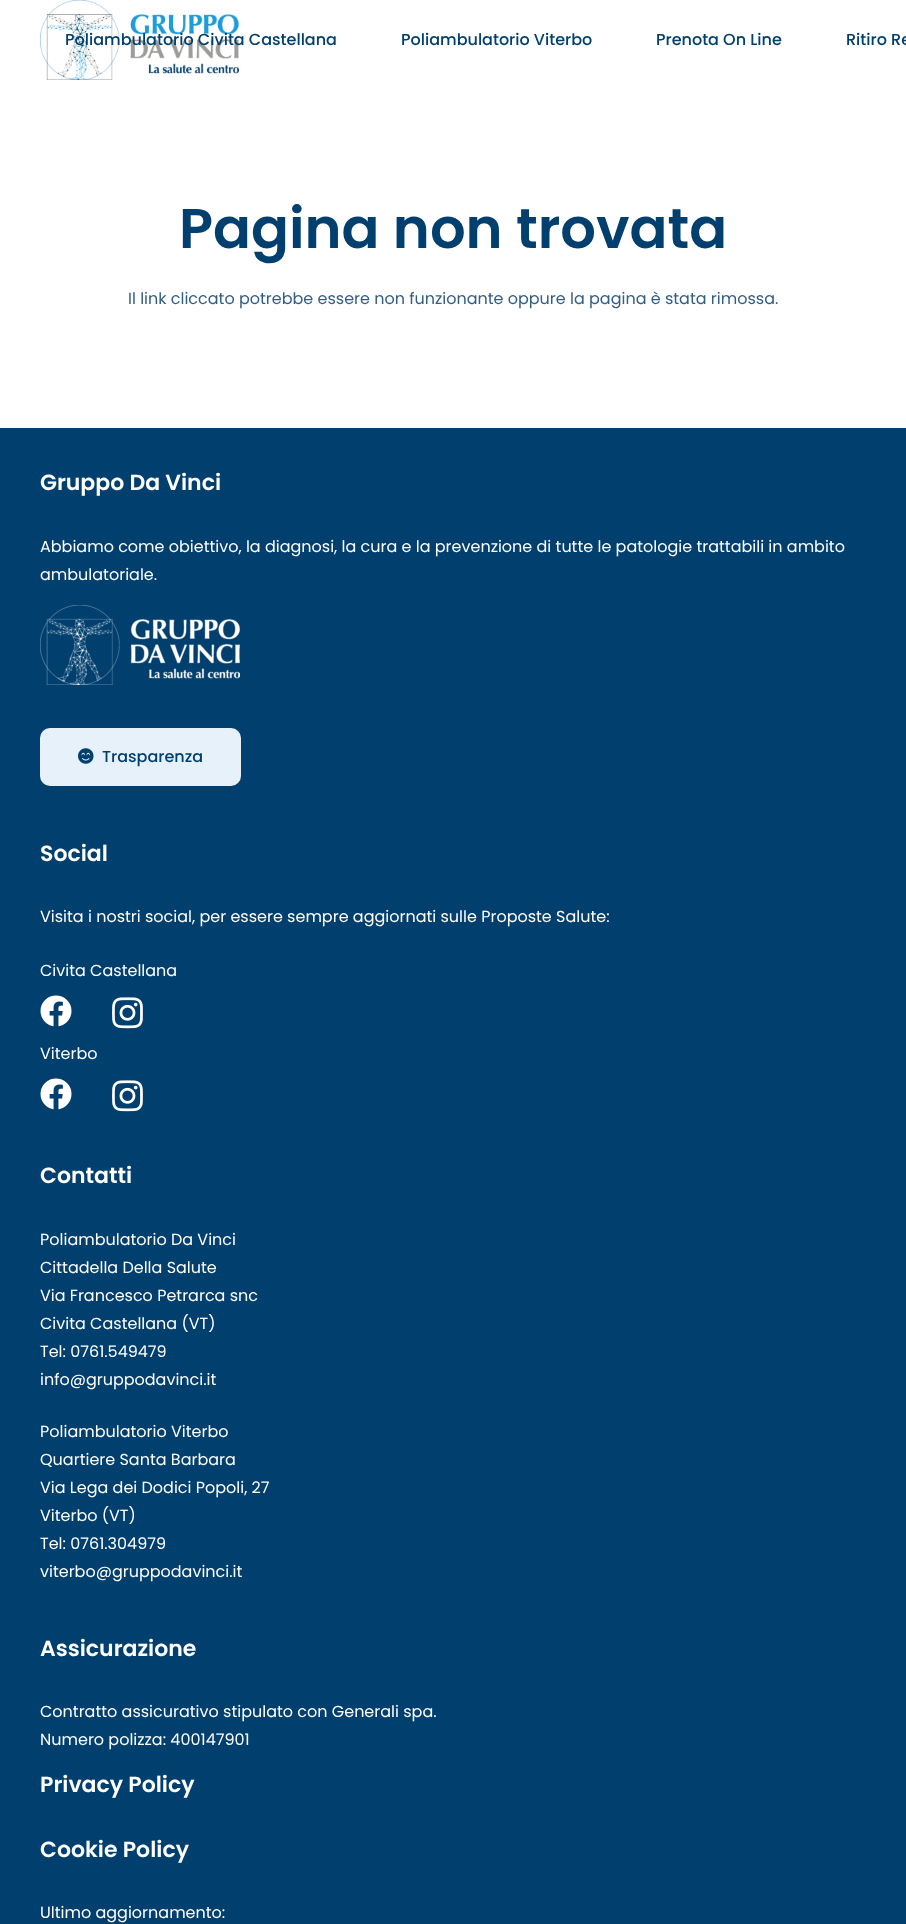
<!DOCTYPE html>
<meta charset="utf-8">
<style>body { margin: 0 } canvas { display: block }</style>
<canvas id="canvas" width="906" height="1924"></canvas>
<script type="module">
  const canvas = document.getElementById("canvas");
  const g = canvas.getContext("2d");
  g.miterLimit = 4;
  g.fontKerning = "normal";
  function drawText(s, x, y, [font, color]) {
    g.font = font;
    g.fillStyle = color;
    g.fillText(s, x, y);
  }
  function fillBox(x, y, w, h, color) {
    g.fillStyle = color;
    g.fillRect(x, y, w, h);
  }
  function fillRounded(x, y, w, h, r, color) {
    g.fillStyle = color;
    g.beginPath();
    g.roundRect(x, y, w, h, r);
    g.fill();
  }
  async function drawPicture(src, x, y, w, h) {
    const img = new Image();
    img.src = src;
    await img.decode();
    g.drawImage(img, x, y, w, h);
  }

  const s1 = ["500 16px Poppins", "#003F6E"];
  const s2 = ["600 56px Poppins", "#003F6E"];
  const s3 = ["16px Poppins", "#335D83"];
  const s4 = ["600 22px Poppins", "#FFFFFF"];
  const s5 = ["16px Poppins", "#FFFFFF"];

  fillBox(0, 0, 906, 1924, "#FFFFFF");
  await drawPicture("pic1.png", 40, 0, 199, 80);
  drawText("Poliambulatorio Civita Castellana", 65, 45, s1);
  drawText("Poliambulatorio Viterbo", 401, 45, s1);
  drawText("Prenota On Line", 656, 45, s1);
  drawText("Ritiro Re", 846, 45, s1);
  drawText("Pagina non trovata", 179, 248, s2);
  drawText("Il link cliccato potrebbe essere non funzionante oppure la pagina è stata rimossa.", 128, 304, s3);
  fillBox(0, 428, 906, 1496, "#003F6E");
  drawText("Gruppo Da Vinci", 40, 490, s4);
  drawText("Abbiamo come obiettivo, la diagnosi, la cura e la prevenzione di tutte le patologie trattabili in ambito", 40, 552, s5);
  drawText("ambulatoriale.", 40, 580, s5);
  await drawPicture("pic2.png", 40, 605, 200, 80);
  fillRounded(40, 728, 201, 58, 10, "#E6F1FA");
  await drawPicture("pic3.png", 78, 748, 16, 16);
  drawText("Trasparenza", 102, 762, s1);
  drawText("Social", 40, 861, s4);
  drawText("Visita i nostri social, per essere sempre aggiornati sulle Proposte Salute:", 40, 922, s5);
  drawText("Civita Castellana", 40, 976, s5);
  await drawPicture("pic4.png", 40, 995, 32, 32);
  await drawPicture("pic5.png", 112, 997, 31, 32);
  drawText("Viterbo", 40, 1059, s5);
  await drawPicture("pic4.png", 40, 1078, 32, 32);
  await drawPicture("pic5.png", 112, 1080, 31, 32);
  drawText("Contatti", 40, 1183, s4);
  drawText("Poliambulatorio Da Vinci", 40, 1245, s5);
  drawText("Cittadella Della Salute", 40, 1273, s5);
  drawText("Via Francesco Petrarca snc", 40, 1301, s5);
  drawText("Civita Castellana (VT)", 40, 1329, s5);
  drawText("Tel: 0761.549479", 40, 1357, s5);
  drawText("info@gruppodavinci.it", 40, 1385, s5);
  drawText("Poliambulatorio Viterbo", 40, 1437, s5);
  drawText("Quartiere Santa Barbara", 40, 1465, s5);
  drawText("Via Lega dei Dodici Popoli, 27", 40, 1493, s5);
  drawText("Viterbo (VT)", 40, 1521, s5);
  drawText("Tel: 0761.304979", 40, 1549, s5);
  drawText("viterbo@gruppodavinci.it", 40, 1577, s5);
  drawText("Assicurazione", 40, 1656, s4);
  drawText("Contratto assicurativo stipulato con Generali spa.", 40, 1717, s5);
  drawText("Numero polizza: 400147901", 40, 1745, s5);
  drawText("Privacy Policy", 40, 1792, s4);
  drawText("Cookie Policy", 40, 1857, s4);
  drawText("Ultimo aggiornamento:", 40, 1918, s5);
</script>
